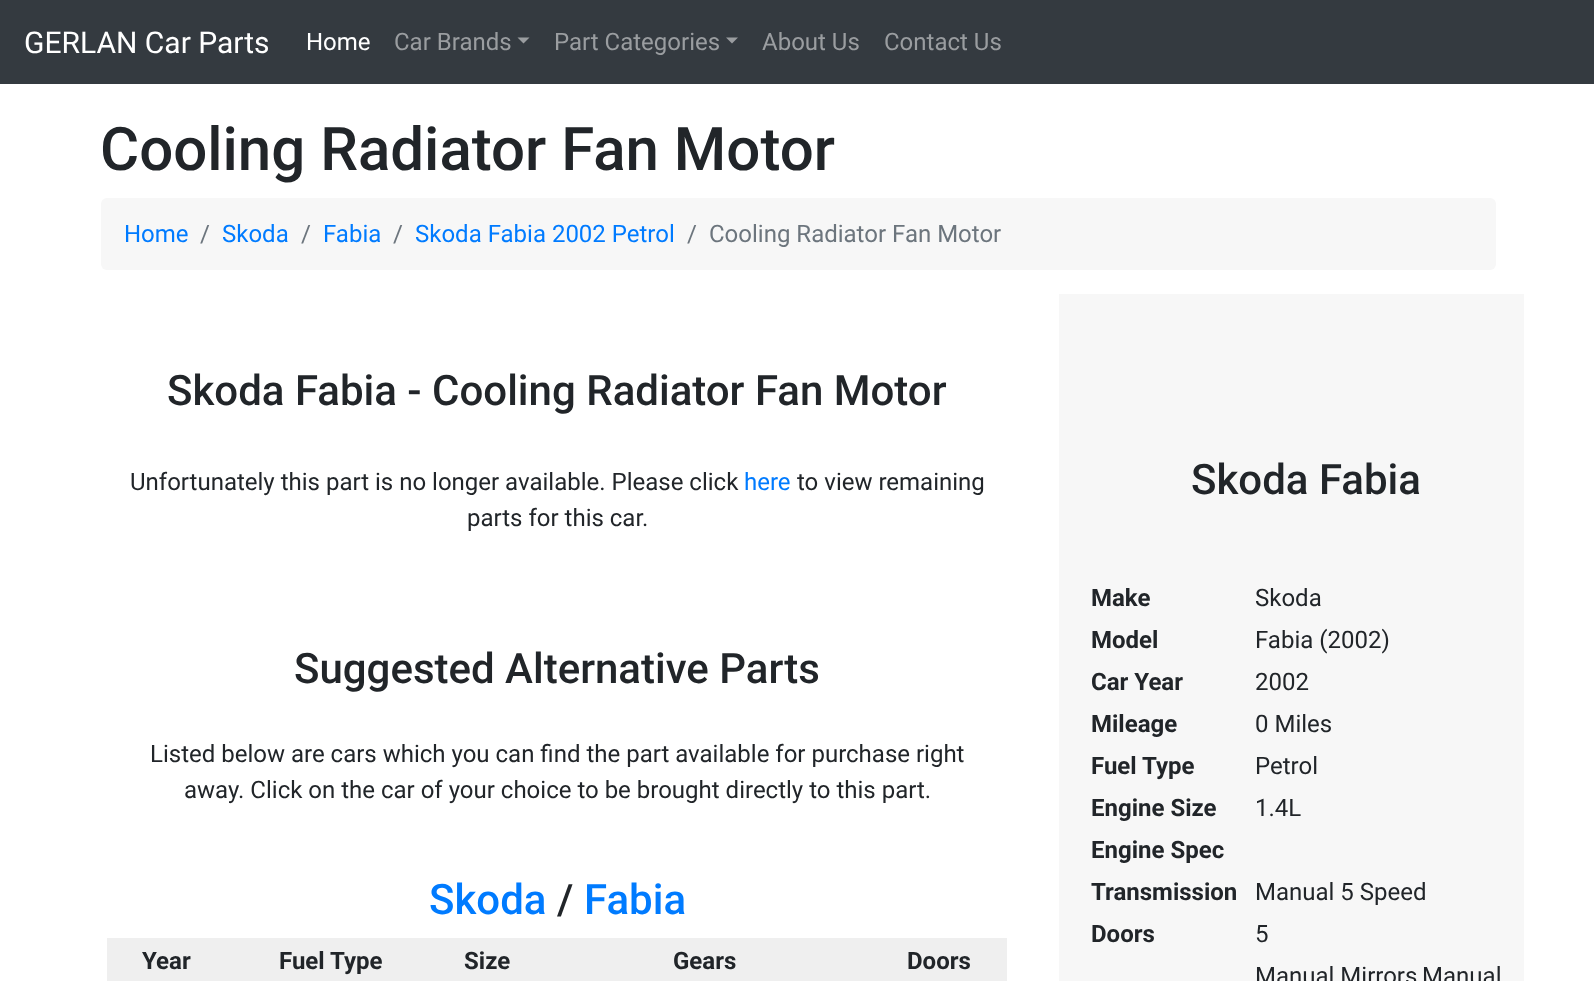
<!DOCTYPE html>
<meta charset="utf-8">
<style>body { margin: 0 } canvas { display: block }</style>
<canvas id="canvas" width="1594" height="981"></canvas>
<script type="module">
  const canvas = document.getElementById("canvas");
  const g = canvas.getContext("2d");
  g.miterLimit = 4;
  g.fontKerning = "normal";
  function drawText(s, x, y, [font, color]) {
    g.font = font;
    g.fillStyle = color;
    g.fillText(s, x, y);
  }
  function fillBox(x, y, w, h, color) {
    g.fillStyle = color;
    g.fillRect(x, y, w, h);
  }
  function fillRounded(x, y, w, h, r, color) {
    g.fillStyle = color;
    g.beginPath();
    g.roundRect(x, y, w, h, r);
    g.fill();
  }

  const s1 = ["30px Roboto", "#FFFFFF"];
  const s2 = ["24px Roboto", "#FFFFFF"];
  const s3 = ["24px Roboto", "#9A9DA0"];
  const s4 = ["500 60px Roboto", "#212529"];
  const s5 = ["24px Roboto", "#007BFF"];
  const s6 = ["24px Roboto", "#6C757D"];
  const s7 = ["500 42px Roboto", "#212529"];
  const s8 = ["24px Roboto", "#212529"];
  const s9 = ["500 42px Roboto", "#007BFF"];
  const s10 = ["bold 24px Roboto", "#212529"];

  fillBox(0, 0, 1594, 981, "#FFFFFF");
  fillBox(0, 0, 1594, 84, "#343A40");
  drawText("GERLAN Car Parts", 24, 53, s1);
  drawText("Home", 306, 50, s2);
  drawText("Car Brands", 394, 50, s3);
  g.beginPath();
  g.moveTo(517.5, 37.5);
  g.lineTo(529.5, 37.5);
  g.lineTo(523.5, 43.5);
  g.closePath();
  g.fill();
  drawText("Part Categories", 554, 50, s3);
  g.beginPath();
  g.moveTo(726, 37.5);
  g.lineTo(738, 37.5);
  g.lineTo(732, 43.5);
  g.closePath();
  g.fill();
  drawText("About Us", 762, 50, s3);
  drawText("Contact Us", 884, 50, s3);
  drawText("Cooling Radiator Fan Motor", 100, 170, s4);
  fillRounded(101, 198, 1395, 72, 6, "#F7F7F7");
  drawText("Home", 124, 242, s5);
  drawText("/", 200, 242, s6);
  drawText("Skoda", 222, 242, s5);
  drawText("/", 301, 242, s6);
  drawText("Fabia", 323, 242, s5);
  drawText("/", 393, 242, s6);
  drawText("Skoda Fabia 2002 Petrol", 415, 242, s5);
  drawText("/", 687, 242, s6);
  drawText("Cooling Radiator Fan Motor", 709, 242, s6);
  drawText("Skoda Fabia - Cooling Radiator Fan Motor", 167, 405, s7);
  drawText("Unfortunately this part is no longer available. Please click", 130, 490, s8);
  drawText("here", 744, 490, s5);
  drawText("to view remaining", 797, 490, s8);
  drawText("parts for this car.", 467, 526, s8);
  drawText("Suggested Alternative Parts", 294, 683, s7);
  drawText("Listed below are cars which you can find the part available for purchase right", 150, 762, s8);
  drawText("away. Click on the car of your choice to be brought directly to this part.", 184, 798, s8);
  drawText("Skoda", 429, 914, s9);
  drawText("/", 557, 914, s7);
  drawText("Fabia", 584, 914, s9);
  fillBox(107, 938, 900, 43, "#EFEFEF");
  drawText("Year", 142, 969, s10);
  drawText("Fuel Type", 279, 969, s10);
  drawText("Size", 464, 969, s10);
  drawText("Gears", 673, 969, s10);
  drawText("Doors", 907, 969, s10);
  fillBox(1059, 294, 465, 687, "#F7F7F7");
  drawText("Skoda Fabia", 1191, 494, s7);
  drawText("Make", 1091, 606, s10);
  drawText("Skoda", 1255, 606, s8);
  drawText("Model", 1091, 648, s10);
  drawText("Fabia (2002)", 1255, 648, s8);
  drawText("Car Year", 1091, 690, s10);
  drawText("2002", 1255, 690, s8);
  drawText("Mileage", 1091, 732, s10);
  drawText("0 Miles", 1255, 732, s8);
  drawText("Fuel Type", 1091, 774, s10);
  drawText("Petrol", 1255, 774, s8);
  drawText("Engine Size", 1091, 816, s10);
  drawText("1.4L", 1255, 816, s8);
  drawText("Engine Spec", 1091, 858, s10);
  drawText("Transmission", 1091, 900, s10);
  drawText("Manual 5 Speed", 1255, 900, s8);
  drawText("Doors", 1091, 942, s10);
  drawText("5", 1255, 942, s8);
  drawText("Manual Mirrors,Manual", 1255, 984, s8);
</script>
